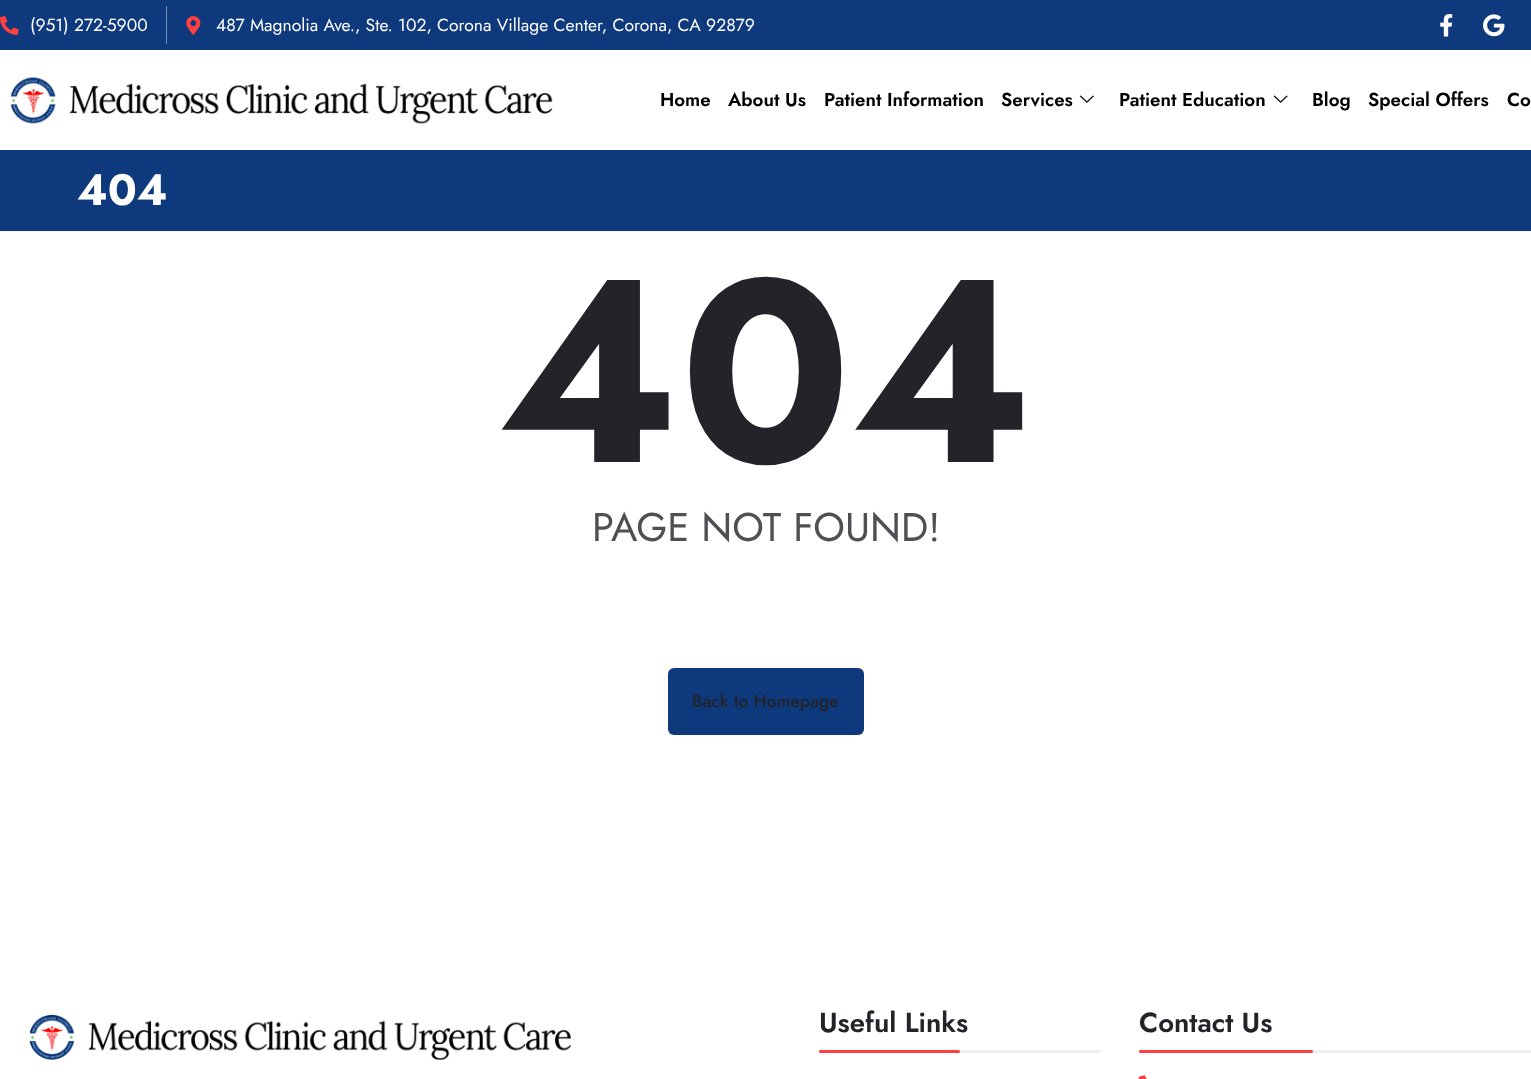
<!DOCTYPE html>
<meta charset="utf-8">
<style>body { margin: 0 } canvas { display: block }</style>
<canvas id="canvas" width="1531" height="1079"></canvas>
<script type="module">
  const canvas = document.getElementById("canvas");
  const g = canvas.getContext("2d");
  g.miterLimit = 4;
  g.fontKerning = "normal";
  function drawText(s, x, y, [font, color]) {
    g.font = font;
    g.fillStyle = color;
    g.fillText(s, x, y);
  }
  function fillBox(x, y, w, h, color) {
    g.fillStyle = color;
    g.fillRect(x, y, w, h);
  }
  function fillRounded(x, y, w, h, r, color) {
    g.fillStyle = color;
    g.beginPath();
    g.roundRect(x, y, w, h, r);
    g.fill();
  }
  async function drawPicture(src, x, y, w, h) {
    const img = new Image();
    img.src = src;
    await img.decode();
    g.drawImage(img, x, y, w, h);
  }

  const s1 = ["17.5px Jost", "#FFFFFF"];
  const s2 = ["600 18.75px Jost", "#000000"];
  const s3 = ["bold 44px Jost", "#FFFFFF"];
  const s4 = ["bold 260px Jost", "#222429"];
  const s5 = ["40px Jost", "#4E5054"];
  const s6 = ["500 17.5px Jost", "#222429"];
  const s7 = ["600 27.5px Jost", "#222429"];

  fillBox(0, 0, 1531, 1079, "#FFFFFF");
  fillBox(0, 0, 1531, 50, "#0E397C");
  await drawPicture("pic1.png", 0, 16, 19, 19);
  drawText("(951) 272-5900", 30, 31, s1);
  fillBox(166, 6, 1, 38, "#7890B6");
  await drawPicture("pic2.png", 186, 16, 15, 19);
  drawText("487 Magnolia Ave., Ste. 102, Corona Village Center, Corona, CA 92879", 216, 31, s1);
  await drawPicture("pic3.png", 1440, 14, 13, 23);
  await drawPicture("pic4.png", 1483, 14, 22, 23);
  await drawPicture("pic5.png", 10, 76, 543, 48);
  drawText("Home", 660, 106, s2);
  drawText("About Us", 728, 106, s2);
  drawText("Patient Information", 824, 106, s2);
  drawText("Services", 1001, 106, s2);
  await drawPicture("pic6.png", 1080, 95, 14, 8);
  drawText("Patient Education", 1119, 106, s2);
  await drawPicture("pic7.png", 1273, 95, 15, 8);
  drawText("Blog", 1312, 106, s2);
  drawText("Special Offers", 1368, 106, s2);
  drawText("Co", 1507, 106, s2);
  fillBox(0, 150, 1531, 81, "#0E397C");
  fillBox(0, 231, 1531, 1, "#F4F4F4");
  drawText("404", 77, 205, s3);
  drawText("404", 498, 462, s4);
  drawText("PAGE NOT FOUND!", 592, 541, s5);
  fillRounded(668, 668, 196, 67, 6, "#0E397C");
  drawText("Back to Homepage", 692, 707, s6);
  await drawPicture("pic8.png", 29, 1014, 542, 46);
  drawText("Useful Links", 819, 1032, s7);
  fillRounded(819, 1050, 282, 3, 1.5, "#EEEEEE");
  fillRounded(819, 1050, 141, 3, 1.5, "#FF4040");
  drawText("Contact Us", 1139, 1032, s7);
  g.fillStyle = "#EEEEEE";
  g.beginPath();
  g.roundRect(1139, 1050, 392, 3, [1.5, 0, 0, 1.5]);
  g.fill();
  fillRounded(1139, 1050, 174, 3, 1.5, "#FF4040");
  await drawPicture("pic9.png", 1138, 1075, 9, 4);
</script>
